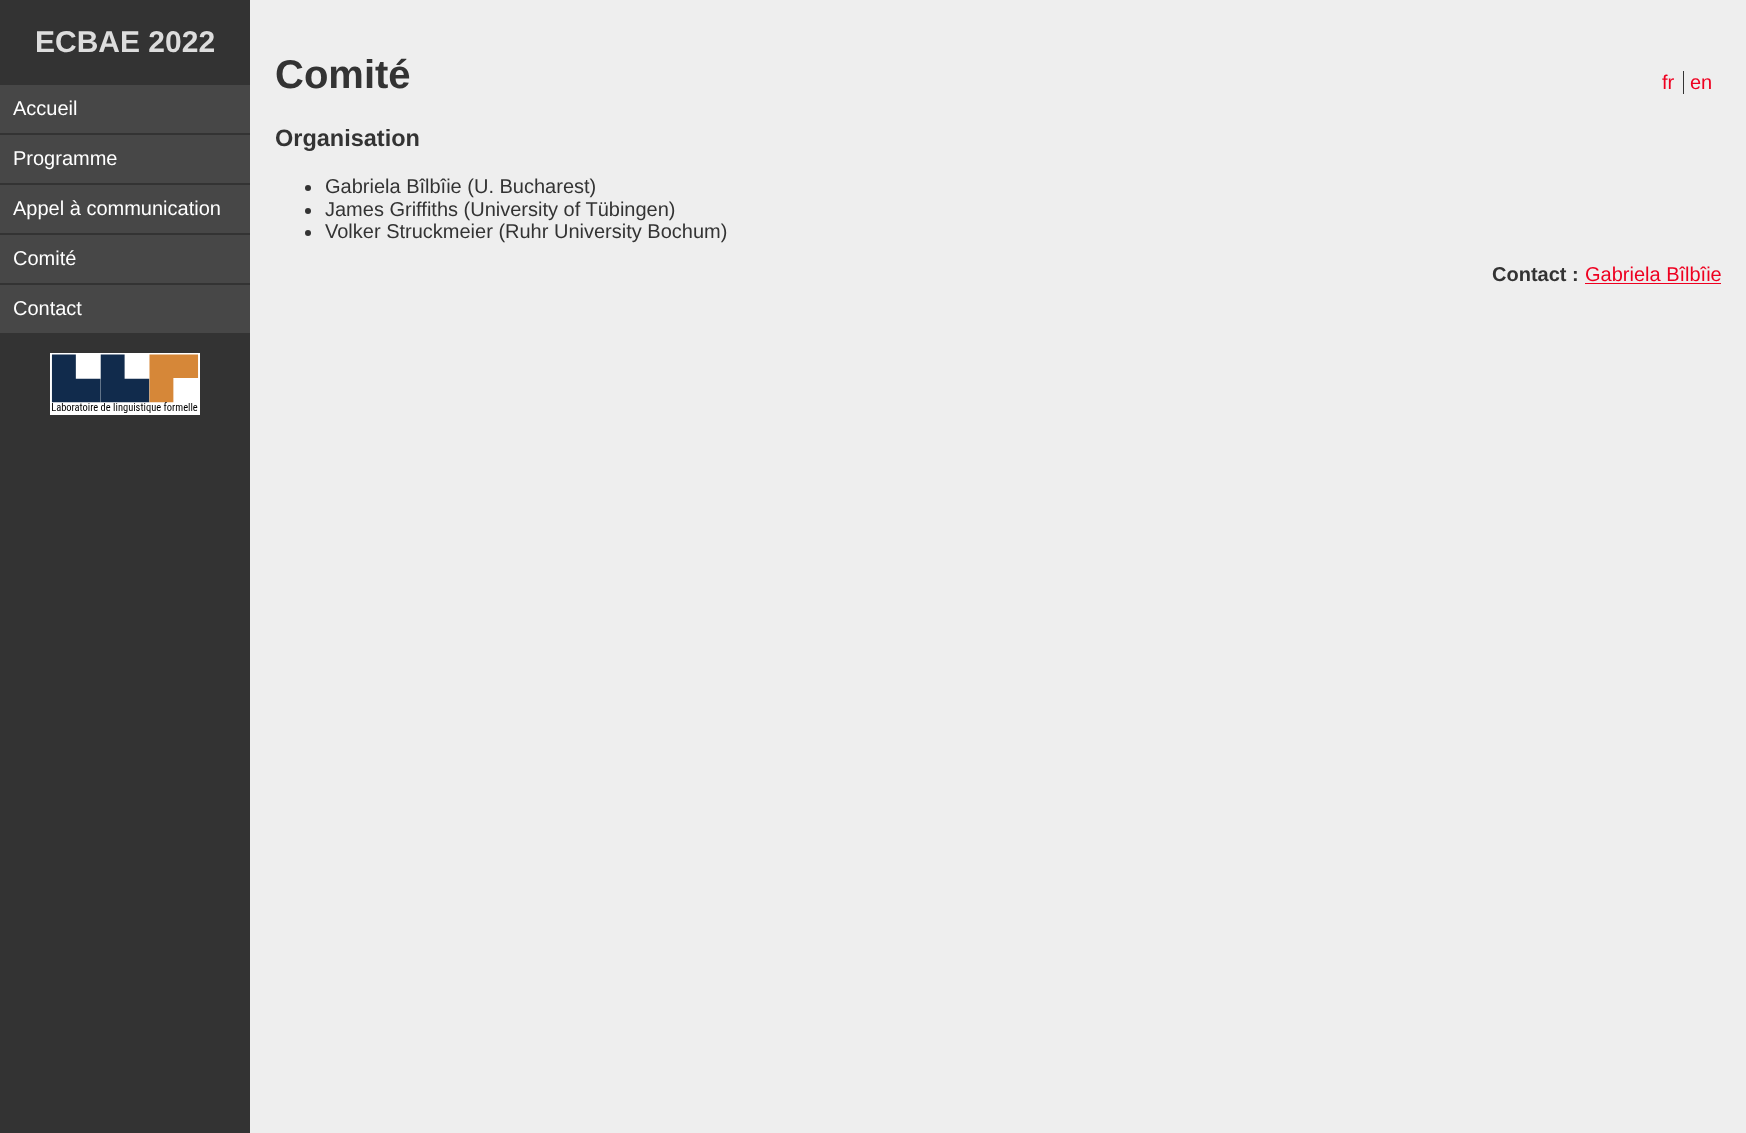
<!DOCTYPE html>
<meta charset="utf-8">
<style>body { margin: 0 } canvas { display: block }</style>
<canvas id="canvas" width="1746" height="1133"></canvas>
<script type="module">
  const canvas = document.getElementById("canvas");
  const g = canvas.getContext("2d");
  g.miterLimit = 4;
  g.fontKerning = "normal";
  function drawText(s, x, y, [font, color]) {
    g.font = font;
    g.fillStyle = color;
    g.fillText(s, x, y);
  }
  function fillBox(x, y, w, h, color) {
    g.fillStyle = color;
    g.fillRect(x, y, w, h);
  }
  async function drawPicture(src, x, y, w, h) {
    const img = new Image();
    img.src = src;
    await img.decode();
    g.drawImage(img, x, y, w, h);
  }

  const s1 = ["bold 30px Liberation Sans", "#DDDDDD"];
  const s2 = ["20px Liberation Sans", "#FFFFFF"];
  const s3 = ["bold 40px Liberation Sans", "#333333"];
  const s4 = ["20px Liberation Sans", "#EE0020"];
  const s5 = ["bold 23.5px Liberation Sans", "#333333"];
  const s6 = ["20px Liberation Sans", "#333333"];
  const s7 = ["bold 20px Liberation Sans", "#333333"];

  fillBox(0, 0, 1746, 1133, "#333333");
  drawText("ECBAE 2022", 35, 52, s1);
  fillBox(0, 85, 250, 48, "#474747");
  drawText("Accueil", 13, 115, s2);
  fillBox(0, 135, 250, 48, "#474747");
  drawText("Programme", 13, 165, s2);
  fillBox(0, 185, 250, 48, "#474747");
  drawText("Appel à communication", 13, 215, s2);
  fillBox(0, 235, 250, 48, "#474747");
  drawText("Comité", 13, 265, s2);
  fillBox(0, 285, 250, 48, "#474747");
  drawText("Contact", 13, 315, s2);
  await drawPicture("pic1.png", 50, 353, 150, 62);
  fillBox(250, 0, 1496, 1133, "#EEEEEE");
  drawText("Comité", 275, 88, s3);
  fillBox(1683, 71, 1, 23, "#333333");
  drawText("fr", 1662, 89, s4);
  drawText("en", 1690, 89, s4);
  drawText("Organisation", 275, 146, s5);
  g.beginPath();
  g.arc(308, 188, 3, 0, Math.PI * 2);
  g.fill();
  drawText("Gabriela Bîlbîie (U. Bucharest)", 325, 193, s6);
  g.beginPath();
  g.arc(308, 211, 3, 0, Math.PI * 2);
  g.fill();
  drawText("James Griffiths (University of Tübingen)", 325, 216, s6);
  g.beginPath();
  g.arc(308, 233, 3, 0, Math.PI * 2);
  g.fill();
  drawText("Volker Struckmeier (Ruhr University Bochum)", 325, 238, s6);
  drawText("Contact :", 1492, 281, s7);
  drawText("Gabriela Bîlbîie", 1585, 281, s4);
  fillBox(1585, 283, 136, 1, "#EE0020");
</script>
